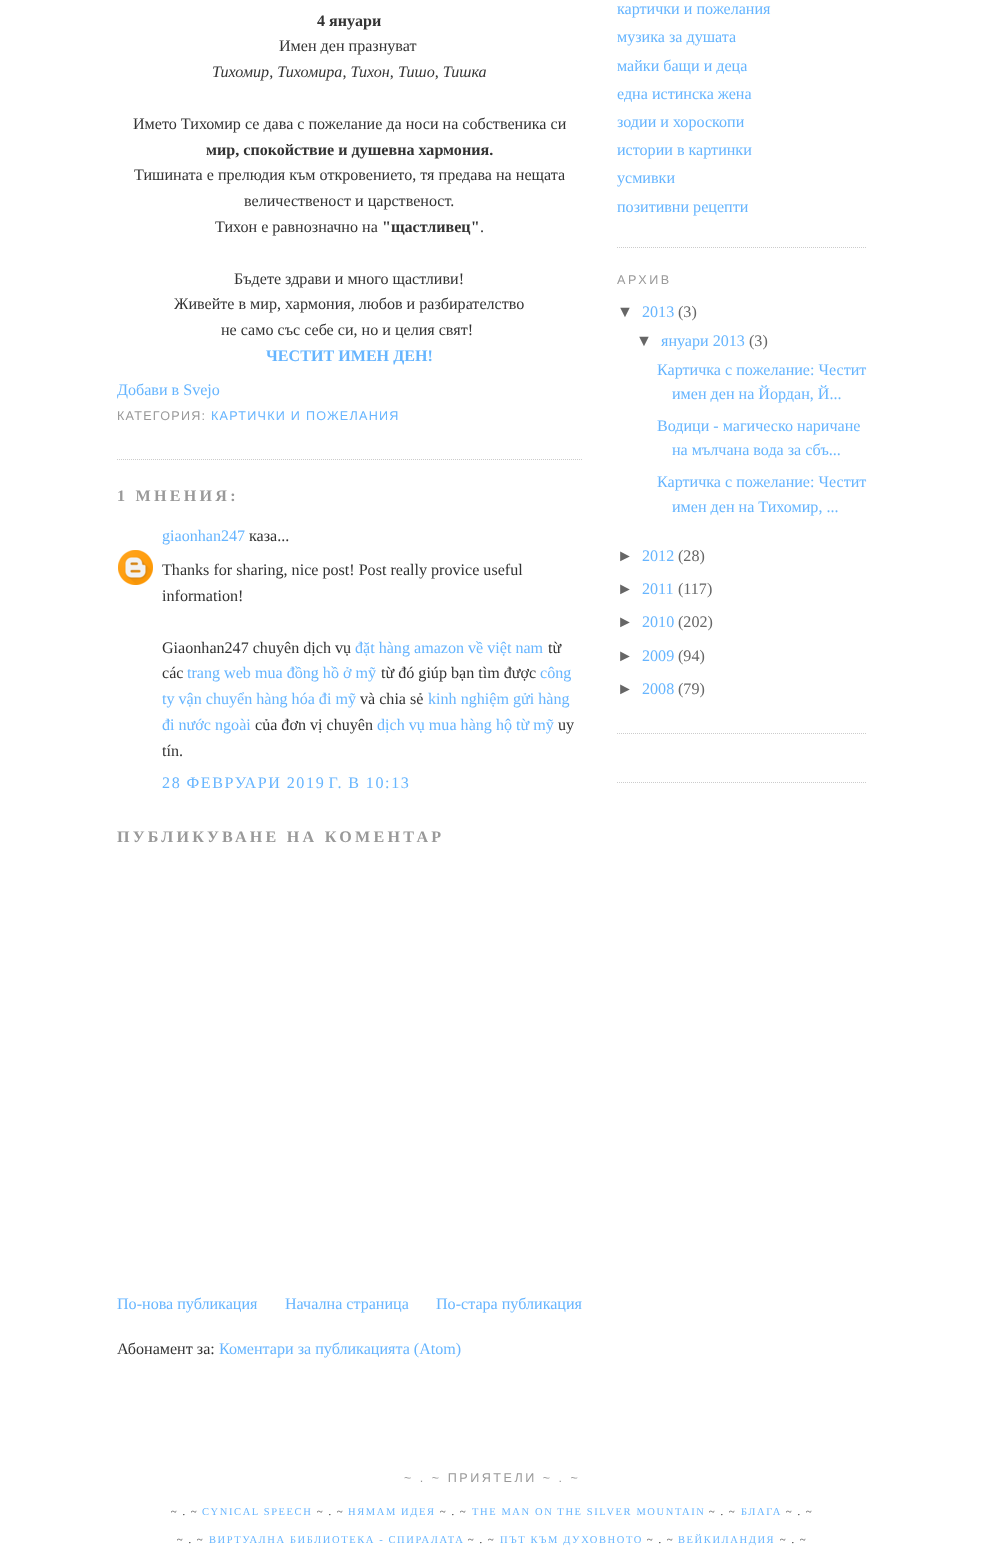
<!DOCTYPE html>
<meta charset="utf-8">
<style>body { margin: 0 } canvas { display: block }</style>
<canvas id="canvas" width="984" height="1553"></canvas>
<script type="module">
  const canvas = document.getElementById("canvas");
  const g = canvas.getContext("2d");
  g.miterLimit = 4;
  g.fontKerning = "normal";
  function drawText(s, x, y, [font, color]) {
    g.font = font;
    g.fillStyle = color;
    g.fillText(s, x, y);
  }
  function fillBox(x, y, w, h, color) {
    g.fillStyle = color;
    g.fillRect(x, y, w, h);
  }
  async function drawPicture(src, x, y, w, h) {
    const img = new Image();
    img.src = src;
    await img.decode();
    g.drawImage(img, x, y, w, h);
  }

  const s1 = ["bold 16.1px Liberation Serif", "#333333"];
  const s2 = ["16.1px Liberation Serif", "#333333"];
  const s3 = ["italic 16.1px Liberation Serif", "#333333"];
  const s4 = ["bold 16.1px Liberation Serif", "#66B5FF"];
  const s5 = ["16.1px Liberation Serif", "#66B5FF"];
  const s6 = ["12.6px Liberation Sans", "#999999"];
  const s7 = ["12.6px Liberation Sans", "#66B5FF"];
  const s8 = ["bold 16.1px Liberation Serif", "#999999"];
  const s9 = ["16.1px Liberation Sans", "#666666"];
  const s10 = ["16.1px Liberation Serif", "#666666"];
  const s11 = ["10.5px Liberation Serif", "#333333"];
  const s12 = ["10.5px Liberation Serif", "#66B5FF"];

  fillBox(0, 0, 984, 1553, "#FFFFFF");
  g.beginPath();
  g.moveTo(117, 459.5);
  g.lineTo(582, 459.5);
  g.strokeStyle = "#CCCCCC";
  g.setLineDash([1, 1]);
  g.stroke();
  drawText("4 януари", 317, 26, s1);
  drawText("Имен ден празнуват", 279, 51, s2);
  drawText("Тихомир, Тихомира, Тихон, Тишо, Тишка", 212, 77, s3);
  drawText("Името Тихомир се дава с пожелание да носи на собственика си", 133, 129, s2);
  drawText("мир, спокойствие и душевна хармония.", 206, 155, s1);
  drawText("Тишината е прелюдия към откровението, тя предава на нещата", 134, 180, s2);
  drawText("величественост и царственост.", 244, 206, s2);
  drawText("Тихон е равнозначно на", 215, 232, s2);
  drawText("\"щастливец\"", 382, 232, s1);
  drawText(".", 480, 232, s2);
  drawText("Бъдете здрави и много щастливи!", 234, 284, s2);
  drawText("Живейте в мир, хармония, любов и разбирателство", 174, 309, s2);
  drawText("не само със себе си, но и целия свят!", 221, 335, s2);
  drawText("ЧЕСТИТ ИМЕН ДЕН!", 266, 361, s4);
  drawText("Добави в Svejo", 117, 395, s5);
  g.letterSpacing = "1.25px";
  drawText("КАТЕГОРИЯ:", 117, 420, s6);
  drawText("КАРТИЧКИ И ПОЖЕЛАНИЯ", 211, 420, s7);
  g.letterSpacing = "3.25px";
  drawText("1 МНЕНИЯ:", 117, 501, s8);
  g.letterSpacing = "0px";
  drawText("giaonhan247", 162, 541, s5);
  drawText("каза...", 249, 541, s2);
  await drawPicture("pic1.png", 118, 550, 35, 35);
  drawText("Thanks for sharing, nice post! Post really provice useful", 162, 575, s2);
  drawText("information!", 162, 601, s2);
  drawText("Giaonhan247 chuyên dịch vụ", 162, 653, s2);
  drawText("đặt hàng amazon về việt nam", 355, 653, s5);
  drawText("từ", 548, 653, s2);
  drawText("các", 162, 678, s2);
  drawText("trang web mua đồng hồ ở mỹ", 187, 678, s5);
  drawText("từ đó giúp bạn tìm được", 381, 678, s2);
  drawText("công", 540, 678, s5);
  drawText("ty vận chuyển hàng hóa đi mỹ", 162, 704, s5);
  drawText("và chia sẻ", 360, 704, s2);
  drawText("kinh nghiệm gửi hàng", 428, 704, s5);
  drawText("đi nước ngoài", 162, 730, s5);
  drawText("của đơn vị chuyên", 255, 730, s2);
  drawText("dịch vụ mua hàng hộ từ mỹ", 377, 730, s5);
  drawText("uy", 558, 730, s2);
  drawText("tín.", 162, 756, s2);
  g.letterSpacing = "1.6px";
  g.wordSpacing = "-0.5px";
  drawText("28 ФЕВРУАРИ 2019 Г. В 10:13", 162, 788, s5);
  g.letterSpacing = "3.25px";
  g.wordSpacing = "0px";
  drawText("ПУБЛИКУВАНЕ НА КОМЕНТАР", 117, 842, s8);
  g.letterSpacing = "0px";
  drawText("По-нова публикация", 117, 1309, s5);
  drawText("Начална страница", 285, 1309, s5);
  drawText("По-стара публикация", 436, 1309, s5);
  drawText("Абонамент за:", 117, 1354, s2);
  drawText("Коментари за публикацията (Atom)", 219, 1354, s5);
  g.beginPath();
  g.moveTo(617, 247.5);
  g.lineTo(867, 247.5);
  g.stroke();
  drawText("картички и пожелания", 617, 14, s5);
  drawText("музика за душата", 617, 42, s5);
  drawText("майки бащи и деца", 617, 71, s5);
  drawText("една истинска жена", 617, 99, s5);
  drawText("зодии и хороскопи", 617, 127, s5);
  drawText("истории в картинки", 617, 155, s5);
  drawText("усмивки", 617, 183, s5);
  drawText("позитивни рецепти", 617, 212, s5);
  g.beginPath();
  g.moveTo(617, 733.5);
  g.lineTo(867, 733.5);
  g.stroke();
  g.letterSpacing = "2.5px";
  drawText("АРХИВ", 617, 284, s6);
  g.letterSpacing = "0px";
  drawText("▼", 617, 317, s9);
  drawText("2013", 642, 317, s5);
  drawText("(3)", 678, 317, s10);
  drawText("▼", 636, 346, s9);
  drawText("януари 2013", 661, 346, s5);
  drawText("(3)", 749, 346, s10);
  drawText("Картичка с пожелание: Честит", 657, 375, s5);
  drawText("имен ден на Йордан, Й...", 672, 399, s5);
  drawText("Водици - магическо наричане", 657, 431, s5);
  drawText("на мълчана вода за сбъ...", 672, 455, s5);
  drawText("Картичка с пожелание: Честит", 657, 487, s5);
  drawText("имен ден на Тихомир, ...", 672, 512, s5);
  drawText("►", 617, 561, s9);
  drawText("2012", 642, 561, s5);
  drawText("(28)", 678, 561, s10);
  drawText("►", 617, 594, s9);
  drawText("2011", 642, 594, s5);
  drawText("(117)", 678, 594, s10);
  drawText("►", 617, 627, s9);
  drawText("2010", 642, 627, s5);
  drawText("(202)", 678, 627, s10);
  drawText("►", 617, 661, s9);
  drawText("2009", 642, 661, s5);
  drawText("(94)", 678, 661, s10);
  drawText("►", 617, 694, s9);
  drawText("2008", 642, 694, s5);
  drawText("(79)", 678, 694, s10);
  g.beginPath();
  g.moveTo(617, 782.5);
  g.lineTo(867, 782.5);
  g.stroke();
  g.letterSpacing = "2.5px";
  drawText("~ . ~ ПРИЯТЕЛИ ~ . ~", 404, 1482, s6);
  g.letterSpacing = "1.6px";
  drawText("~ . ~", 171, 1515, s11);
  drawText("CYNICAL SPEECH", 202, 1515, s12);
  drawText("~ . ~", 317, 1515, s11);
  drawText("НЯМАМ ИДЕЯ", 348, 1515, s12);
  drawText("~ . ~", 440, 1515, s11);
  drawText("THE MAN ON THE SILVER MOUNTAIN", 472, 1515, s12);
  drawText("~ . ~", 709, 1515, s11);
  drawText("БЛАГА", 741, 1515, s12);
  drawText("~ . ~", 786, 1515, s11);
  drawText("~ . ~", 177, 1543, s11);
  drawText("ВИРТУАЛНА БИБЛИОТЕКА - СПИРАЛАТА", 209, 1543, s12);
  drawText("~ . ~", 468, 1543, s11);
  drawText("ПЪТ КЪМ ДУХОВНОТО", 500, 1543, s12);
  drawText("~ . ~", 647, 1543, s11);
  drawText("ВЕЙКИЛАНДИЯ", 678, 1543, s12);
  drawText("~ . ~", 780, 1543, s11);
</script>
